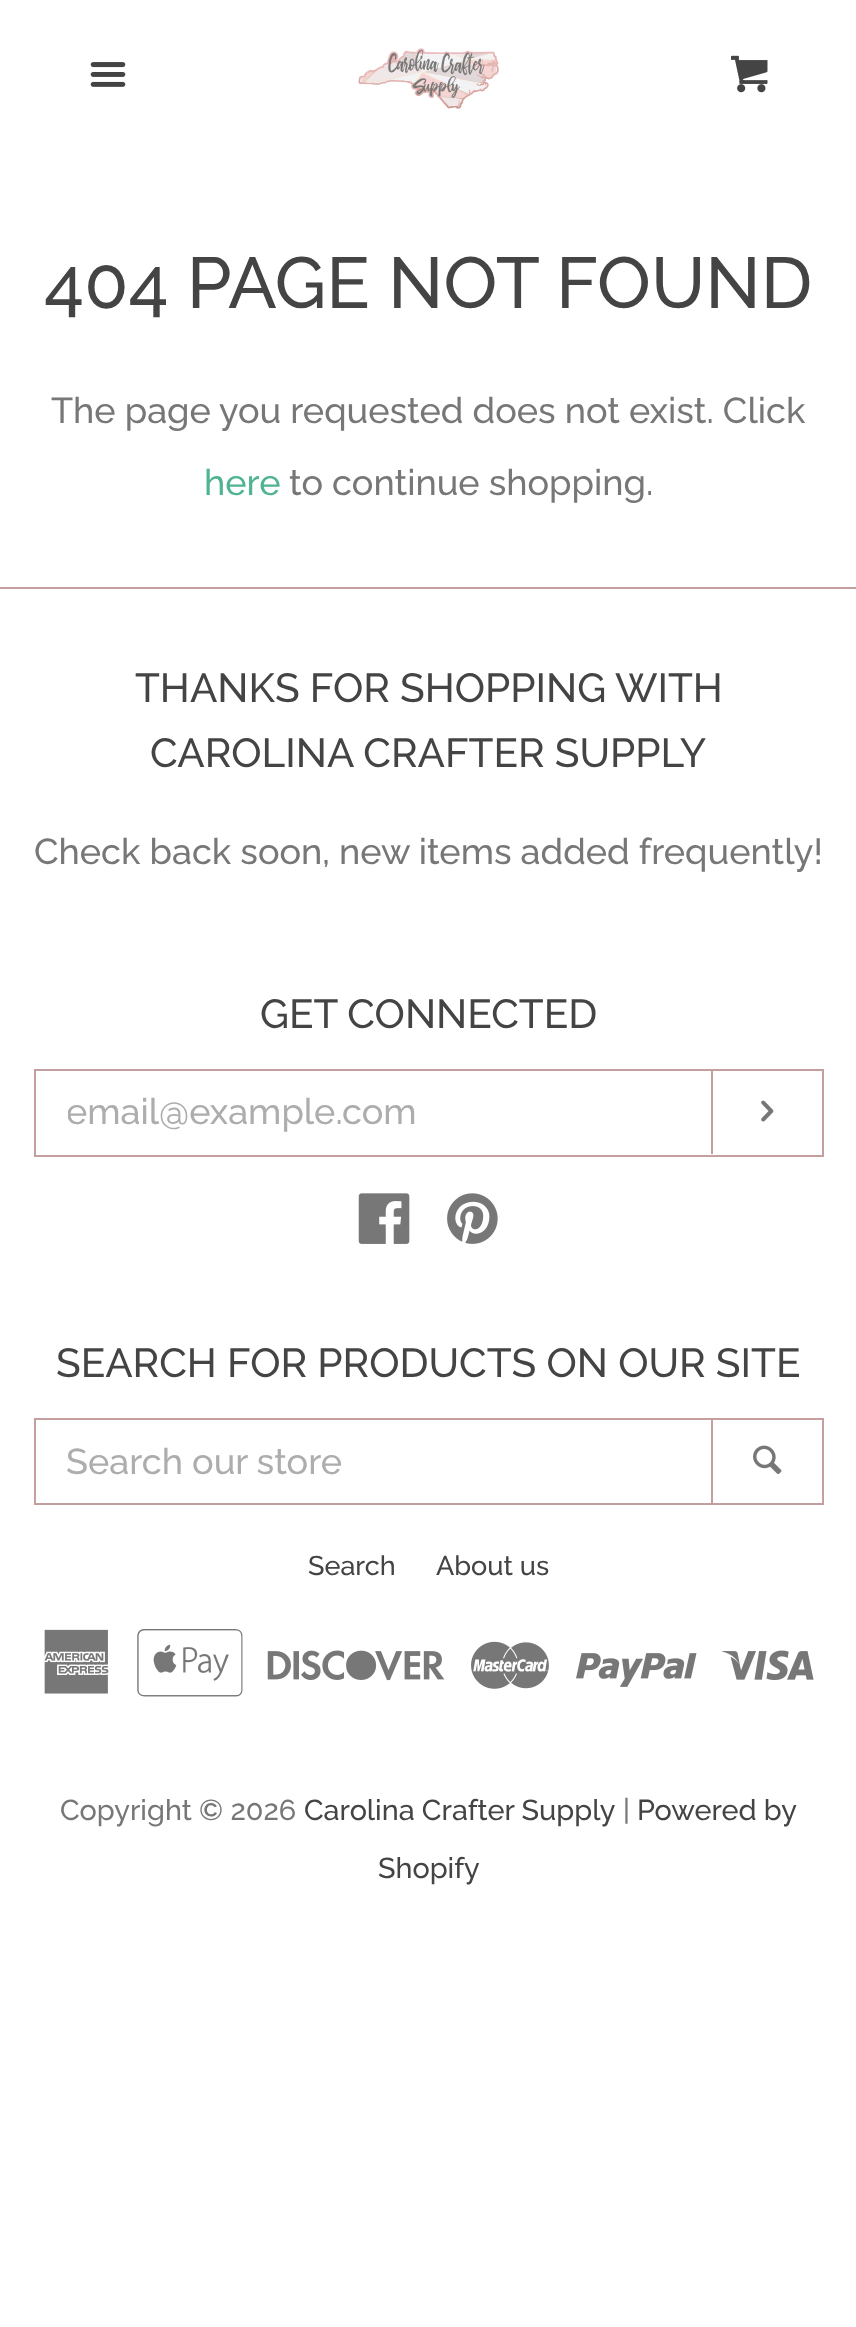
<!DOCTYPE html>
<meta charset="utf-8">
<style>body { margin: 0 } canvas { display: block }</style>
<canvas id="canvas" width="856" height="2327"></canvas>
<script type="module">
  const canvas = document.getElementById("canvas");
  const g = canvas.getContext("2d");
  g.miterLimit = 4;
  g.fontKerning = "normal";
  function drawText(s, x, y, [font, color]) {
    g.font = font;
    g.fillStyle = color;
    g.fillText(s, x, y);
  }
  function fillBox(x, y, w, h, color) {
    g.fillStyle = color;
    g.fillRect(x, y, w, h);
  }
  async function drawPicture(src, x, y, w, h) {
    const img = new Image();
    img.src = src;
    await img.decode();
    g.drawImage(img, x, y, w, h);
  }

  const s1 = ["500 72px Raleway", "#444444"];
  const s2 = ["500 36px Raleway", "#777777"];
  const s3 = ["500 36px Raleway", "#50B491"];
  const s4 = ["500 40.5px Raleway", "#444444"];
  const s5 = ["500 36px Raleway", "#ADADAD"];
  const s6 = ["500 27px Raleway", "#444444"];
  const s7 = ["500 28.75px Raleway", "#777777"];
  const s8 = ["500 28.75px Raleway", "#444444"];

  fillBox(0, 0, 856, 2327, "#FFFFFF");
  await drawPicture("pic1.png", 90, 62, 36, 25);
  await drawPicture("pic2.png", 358, 48, 141, 61);
  await drawPicture("pic3.png", 731, 55, 37, 38);
  drawText("404 PAGE NOT FOUND", 44, 308, s1);
  drawText("The page you requested does not exist. Click", 51, 423, s2);
  drawText("here", 204, 495, s3);
  drawText("to continue shopping.", 289, 495, s2);
  fillBox(0, 587, 856, 2, "#C59F9F");
  drawText("THANKS FOR SHOPPING WITH", 135, 702, s4);
  drawText("CAROLINA CRAFTER SUPPLY", 150, 767, s4);
  drawText("Check back soon, new items added frequently!", 34, 864, s2);
  drawText("GET CONNECTED", 260, 1028, s4);
  g.strokeStyle = "#C59F9F";
  g.lineWidth = 2;
  g.strokeRect(35, 1070, 788, 86);
  fillBox(711, 1071, 2, 83, "#C59F9F");
  g.save();
  g.beginPath();
  g.rect(68, 1091, 614, 43);
  g.clip();
  drawText("email@example.com", 66, 1124, s5);
  g.restore();
  await drawPicture("pic4.png", 761, 1100, 13, 22);
  await drawPicture("pic5.png", 358, 1193, 52, 51);
  await drawPicture("pic6.png", 447, 1193, 51, 51);
  drawText("SEARCH FOR PRODUCTS ON OUR SITE", 56, 1377, s4);
  g.strokeRect(35, 1419, 788, 85);
  fillBox(711, 1420, 2, 83, "#C59F9F");
  drawText("Search our store", 66, 1474, s5);
  await drawPicture("pic7.png", 753, 1445, 29, 29);
  drawText("Search", 308, 1575, s6);
  drawText("About us", 436, 1575, s6);
  await drawPicture("pic8.png", 44, 1629, 65, 65);
  await drawPicture("pic9.png", 137, 1629, 106, 68);
  await drawPicture("pic10.png", 267, 1650, 178, 31);
  await drawPicture("pic11.png", 471, 1641, 78, 48);
  await drawPicture("pic12.png", 576, 1653, 121, 34);
  await drawPicture("pic13.png", 722, 1650, 92, 31);
  drawText("Copyright © 2026", 60, 1820, s7);
  drawText("Carolina Crafter Supply", 304, 1820, s8);
  drawText("|", 623, 1820, s7);
  drawText("Powered by", 637, 1820, s8);
  drawText("Shopify", 378, 1878, s8);
</script>
